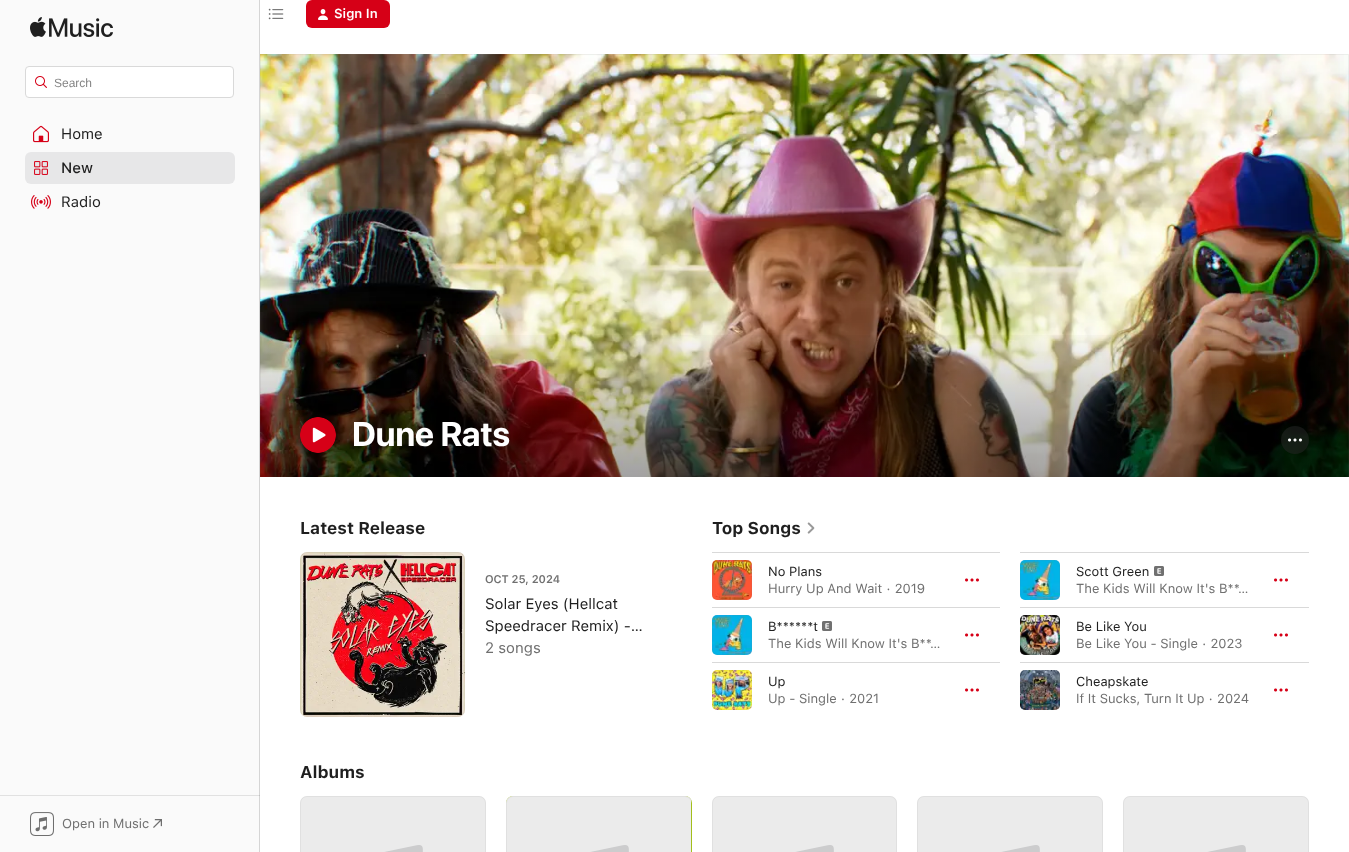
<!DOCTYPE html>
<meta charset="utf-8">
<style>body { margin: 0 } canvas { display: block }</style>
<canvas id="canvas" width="1349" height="852"></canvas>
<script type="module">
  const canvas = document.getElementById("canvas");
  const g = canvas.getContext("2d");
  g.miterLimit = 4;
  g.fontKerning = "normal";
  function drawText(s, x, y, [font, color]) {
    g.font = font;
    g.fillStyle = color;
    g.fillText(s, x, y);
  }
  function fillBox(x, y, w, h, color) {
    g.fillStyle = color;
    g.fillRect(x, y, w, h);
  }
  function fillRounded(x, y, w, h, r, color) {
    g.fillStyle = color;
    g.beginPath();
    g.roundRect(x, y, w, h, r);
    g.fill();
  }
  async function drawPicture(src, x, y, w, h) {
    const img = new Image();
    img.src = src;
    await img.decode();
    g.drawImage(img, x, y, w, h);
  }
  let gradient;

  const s1 = ["600 13px SF", "#FFFFFF"];
  const s2 = ["12px Liberation Sans", "#858585"];
  const s3 = ["15px SF", "#1F1F1F"];
  const s4 = ["500 15px SF", "#1F1F1F"];
  const s5 = ["13px SF", "#707070"];
  const s6 = ["bold 34px 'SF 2'", "#FFFFFF"];
  const s7 = ["bold 17px SF", "#1F1F1F"];
  const s8 = ["600 11px SF", "#707070"];
  const s9 = ["15px SF", "#707070"];
  const s10 = ["13px SF", "#1F1F1F"];

  fillBox(0, 0, 1349, 852, "#FFFFFF");
  await drawPicture("pic1.png", 268, 8, 16, 12);
  fillRounded(306, 0, 84, 28, 6, "#D60017");
  await drawPicture("pic2.png", 318, 9, 10, 11);
  drawText("Sign In", 334, 18, s1);
  fillBox(0, 0, 259, 852, "#FAFAFA");
  fillBox(0, 795, 260, 1, "#E1E1E1");
  fillBox(259, 0, 1, 852, "#D5D5D5");
  fillBox(259, 795, 1, 1, "#C0C0C0");
  await drawPicture("pic3.png", 30, 17, 83, 20);
  g.fillStyle = "#FFFFFF";
  g.beginPath();
  g.roundRect(25.5, 66.5, 208, 31, 3.5);
  g.fill();
  g.strokeStyle = "#D9D9D9";
  g.stroke();
  await drawPicture("pic4.png", 35, 76, 12, 12);
  drawText("Search", 54, 87, s2);
  await drawPicture("pic5.png", 33, 125, 16, 18);
  drawText("Home", 61, 139, s3);
  fillRounded(25, 152, 210, 32, 6, "#E7E7E8");
  await drawPicture("pic6.png", 34, 161, 14, 14);
  drawText("New", 61, 173, s4);
  await drawPicture("pic7.png", 31, 195, 20, 14);
  drawText("Radio", 61, 207, s3);
  await drawPicture("pic8.png", 30, 812, 24, 24);
  drawText("Open in Music", 62, 828, s5);
  await drawPicture("pic9.png", 153, 819, 9, 9);
  await drawPicture("pic10.png", 260, 54, 1089, 423);
  await drawPicture("pic14.png", 807, 522, 8, 12);
  g.save();
  g.beginPath();
  g.rect(260, 54, 1089, 423);
  g.clip();
  g.strokeStyle = "rgba(128, 128, 128, 0.1)";
  g.strokeRect(260.5, 54.5, 1088, 612);
  g.restore();
  gradient = g.createLinearGradient(805, 477, 805, 327);
  gradient.addColorStop(0, "rgba(0, 0, 0, 0.36)");
  gradient.addColorStop(0.36, "rgba(0, 0, 0, 0.25)");
  gradient.addColorStop(1, "rgba(0, 0, 0, 0)");
  g.fillStyle = gradient;
  g.fillRect(260, 335, 1089, 142);
  await drawPicture("pic11.png", 300, 417, 36, 36);
  drawText("Dune Rats", 352, 446, s6);
  g.fillStyle = "rgba(40, 40, 40, 0.5)";
  g.beginPath();
  g.arc(1295, 440, 14, 0, Math.PI * 2);
  g.fill();
  await drawPicture("pic12.png", 1288, 438, 14, 4);
  drawText("Latest Release", 300, 534, s7);
  await drawPicture("pic13.png", 300, 552, 165, 165);
  g.beginPath();
  g.roundRect(300.5, 552.5, 164, 164, 6.5);
  g.strokeStyle = "rgba(128, 128, 128, 0.1)";
  g.stroke();
  drawText("OCT 25, 2024", 485, 583, s8);
  drawText("Solar Eyes (Hellcat", 485, 609, s3);
  drawText("Speedracer Remix) -…", 485, 631, s3);
  drawText("2 songs", 485, 653, s9);
  drawText("Top Songs", 712, 534, s7);
  fillBox(712, 552, 288, 1, "#D9D9D9");
  await drawPicture("pic15.png", 712, 560, 40, 40);
  g.beginPath();
  g.roundRect(712.5, 560.5, 39, 39, 4.5);
  g.stroke();
  drawText("No Plans", 768, 576, s10);
  drawText("Hurry Up And Wait · 2019", 768, 593, s5);
  await drawPicture("pic16.png", 965, 578, 14, 4);
  fillBox(1020, 552, 289, 1, "#D9D9D9");
  await drawPicture("pic17.png", 1020, 560, 40, 40);
  g.beginPath();
  g.roundRect(1020.5, 560.5, 39, 39, 4.5);
  g.stroke();
  drawText("Scott Green", 1076, 576, s10);
  await drawPicture("pic18.png", 1154, 566, 10, 10);
  drawText("The Kids Will Know It's B**…", 1076, 593, s5);
  await drawPicture("pic16.png", 1274, 578, 14, 4);
  fillBox(712, 607, 288, 1, "#D9D9D9");
  await drawPicture("pic17.png", 712, 615, 40, 40);
  g.beginPath();
  g.roundRect(712.5, 615.5, 39, 39, 4.5);
  g.stroke();
  drawText("B******t", 768, 631, s10);
  await drawPicture("pic18.png", 822, 621, 10, 10);
  drawText("The Kids Will Know It's B**…", 768, 648, s5);
  await drawPicture("pic16.png", 965, 633, 14, 4);
  fillBox(1020, 607, 289, 1, "#D9D9D9");
  await drawPicture("pic19.png", 1020, 615, 40, 40);
  g.beginPath();
  g.roundRect(1020.5, 615.5, 39, 39, 4.5);
  g.stroke();
  drawText("Be Like You", 1076, 631, s10);
  drawText("Be Like You - Single · 2023", 1076, 648, s5);
  await drawPicture("pic16.png", 1274, 633, 14, 4);
  fillBox(712, 662, 288, 1, "#D9D9D9");
  await drawPicture("pic20.png", 712, 670, 40, 40);
  g.beginPath();
  g.roundRect(712.5, 670.5, 39, 39, 4.5);
  g.stroke();
  drawText("Up", 768, 686, s10);
  drawText("Up - Single · 2021", 768, 703, s5);
  await drawPicture("pic16.png", 965, 688, 14, 4);
  fillBox(1020, 662, 289, 1, "#D9D9D9");
  await drawPicture("pic21.png", 1020, 670, 40, 40);
  g.beginPath();
  g.roundRect(1020.5, 670.5, 39, 39, 4.5);
  g.stroke();
  drawText("Cheapskate", 1076, 686, s10);
  drawText("If It Sucks, Turn It Up · 2024", 1076, 703, s5);
  await drawPicture("pic16.png", 1274, 688, 14, 4);
  drawText("Albums", 300, 778, s7);
  await drawPicture("pic22.png", 300, 796, 186, 56);
  g.beginPath();
  g.roundRect(300.5, 796.5, 185, 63, 6.5);
  g.stroke();
  g.fillStyle = "#A6C611";
  g.beginPath();
  g.roundRect(506, 796, 186, 56, [7, 7, 0, 0]);
  g.fill();
  await drawPicture("pic23.png", 506, 796, 185, 56);
  g.beginPath();
  g.roundRect(506.5, 796.5, 185, 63, 6.5);
  g.stroke();
  await drawPicture("pic24.png", 712, 796, 185, 56);
  g.beginPath();
  g.roundRect(712.5, 796.5, 184, 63, 6.5);
  g.stroke();
  await drawPicture("pic25.png", 917, 796, 186, 56);
  g.beginPath();
  g.roundRect(917.5, 796.5, 185, 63, 6.5);
  g.stroke();
  await drawPicture("pic26.png", 1123, 796, 186, 56);
  g.beginPath();
  g.roundRect(1123.5, 796.5, 185, 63, 6.5);
  g.stroke();
</script>
